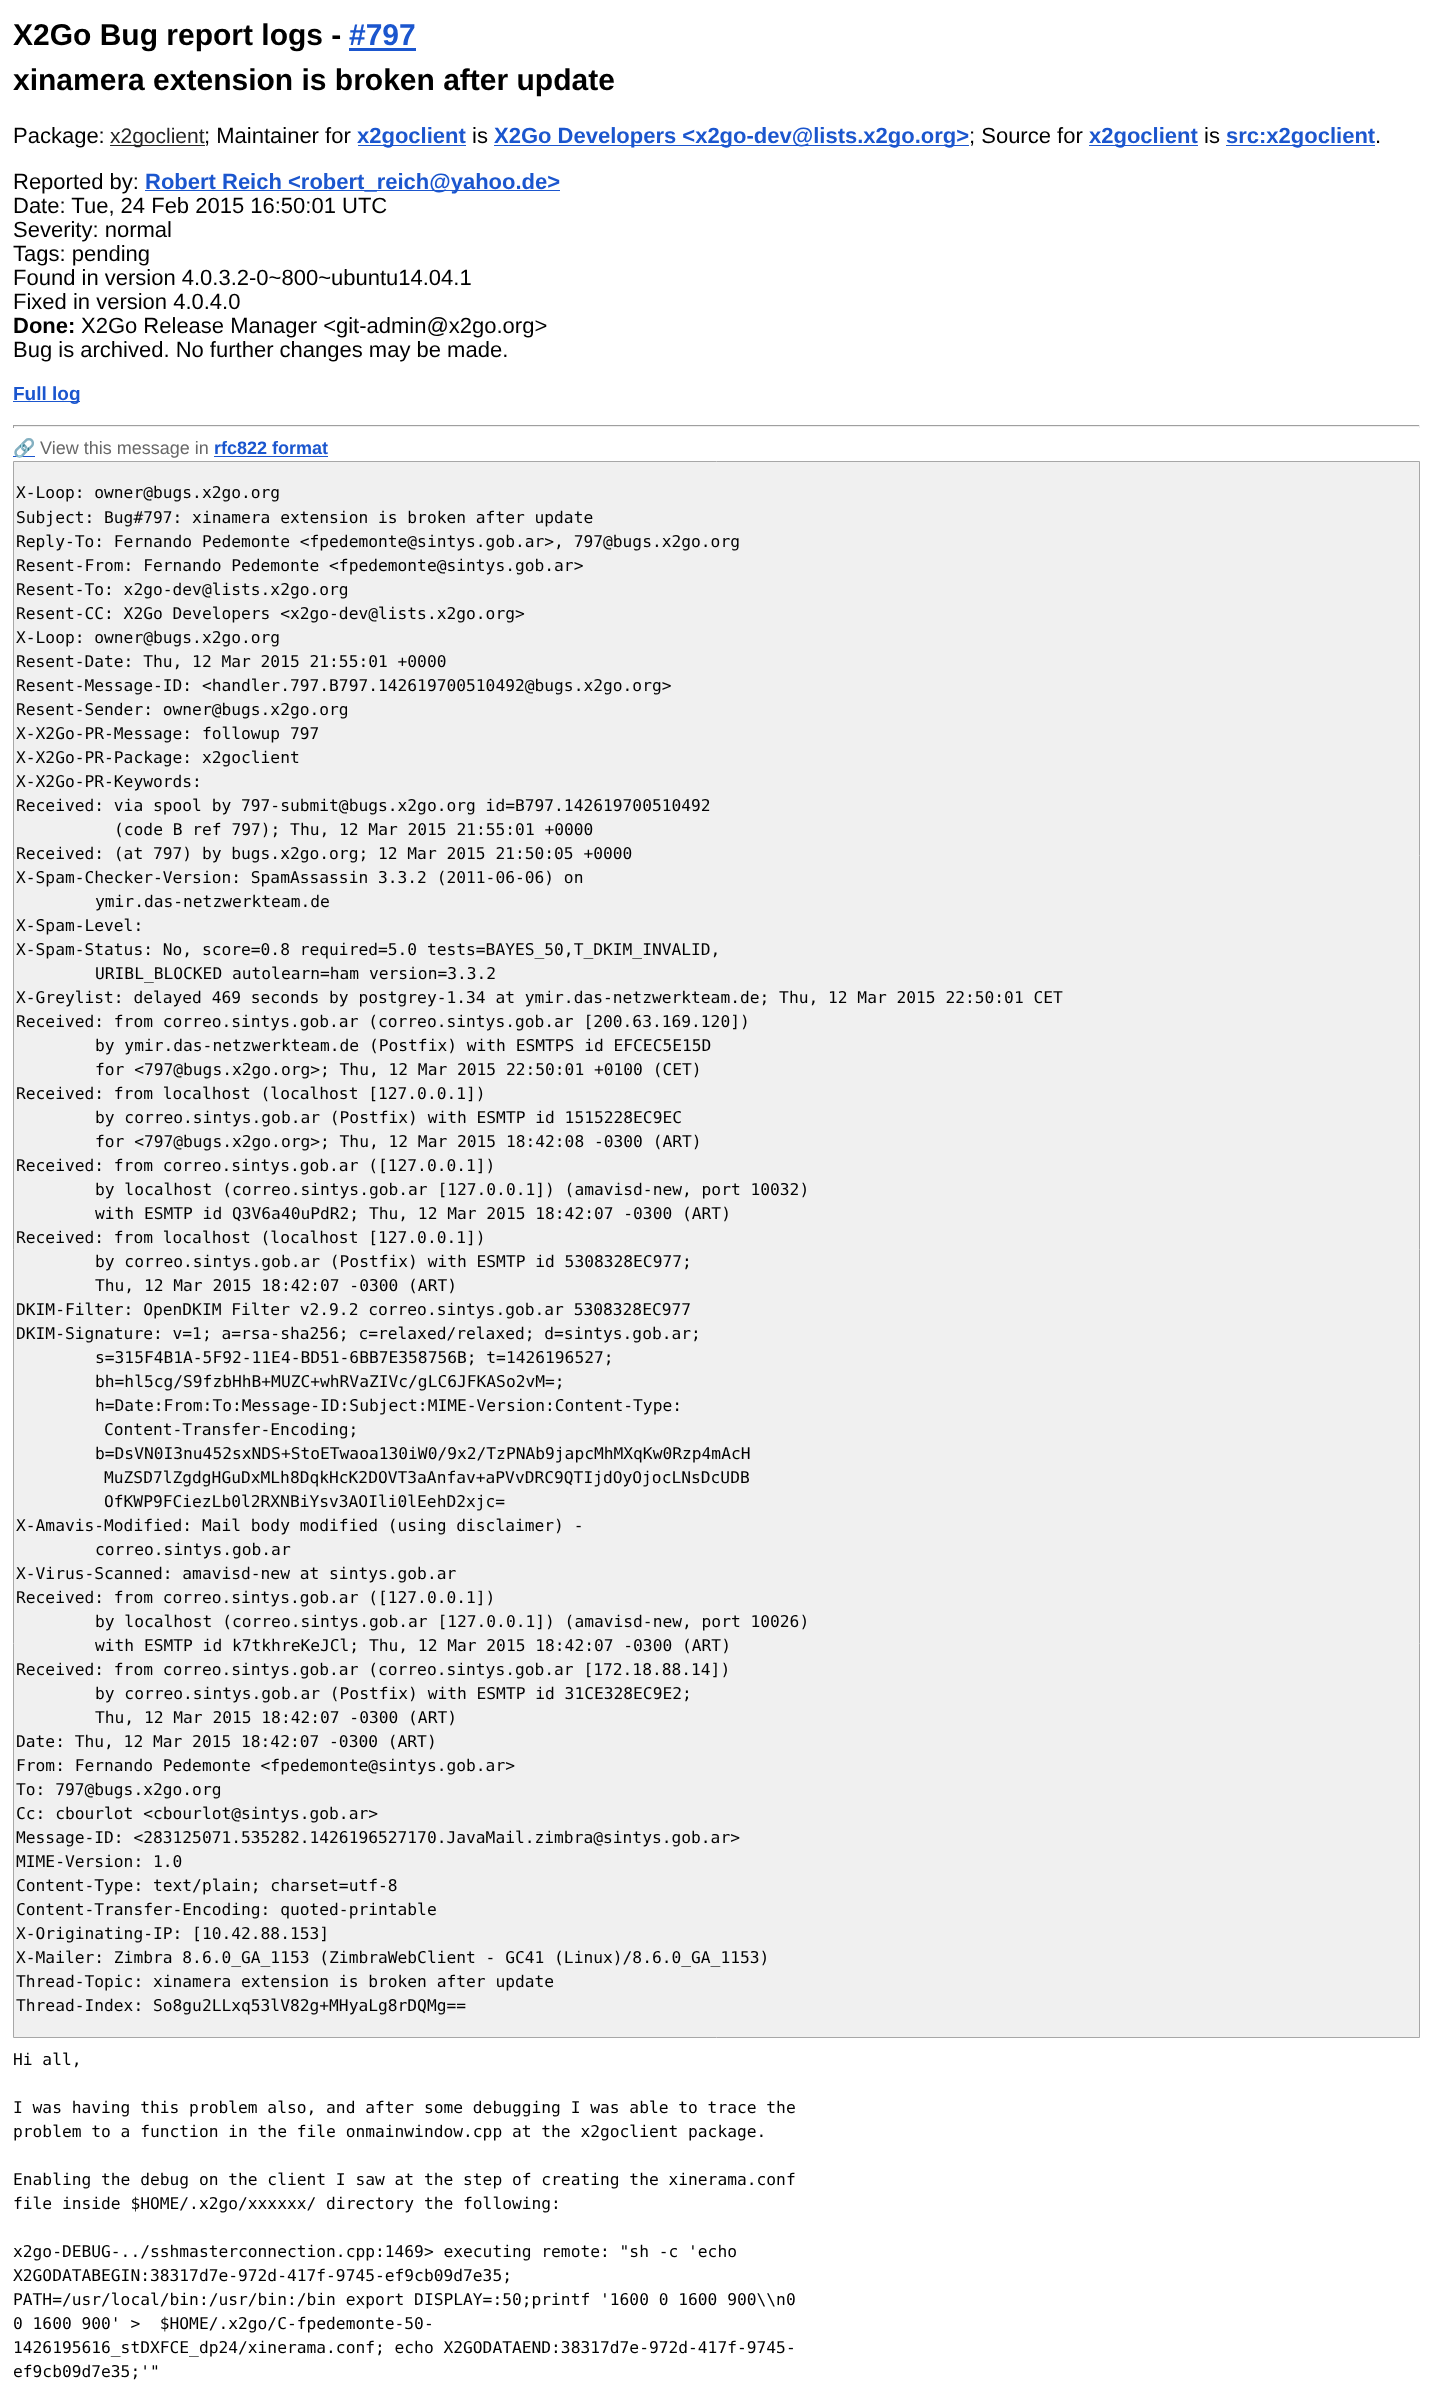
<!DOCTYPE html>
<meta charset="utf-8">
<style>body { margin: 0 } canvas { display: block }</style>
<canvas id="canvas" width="1432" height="2387"></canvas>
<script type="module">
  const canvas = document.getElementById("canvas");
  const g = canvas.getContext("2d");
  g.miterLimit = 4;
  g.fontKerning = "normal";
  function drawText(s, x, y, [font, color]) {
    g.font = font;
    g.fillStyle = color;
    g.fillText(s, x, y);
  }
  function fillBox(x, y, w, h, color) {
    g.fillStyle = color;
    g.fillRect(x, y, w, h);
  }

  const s1 = ["bold 30px Liberation Sans", "#000000"];
  const s2 = ["bold 30px Liberation Sans", "#1B56CE"];
  const s3 = ["22px Liberation Sans", "#000000"];
  const s4 = ["21px Liberation Sans", "#242424"];
  const s5 = ["bold 22px Liberation Sans", "#1B56CE"];
  const s6 = ["bold 22px Liberation Sans", "#000000"];
  const s7 = ["bold 19px Liberation Sans", "#1B56CE"];
  const s8 = ["bold 18px Noto Color Emoji", "#1B56CE"];
  const s9 = ["18px Liberation Sans", "#686868"];
  const s10 = ["bold 18px Liberation Sans", "#1B56CE"];
  const s11 = ["16.25px DejaVu Sans Mono", "#000000"];

  fillBox(0, 0, 1432, 2387, "#FFFFFF");
  drawText("X2Go Bug report logs -", 13, 45, s1);
  drawText("#797", 349, 45, s2);
  fillBox(349, 48, 67, 3, "#1B56CE");
  drawText("xinamera extension is broken after update", 13, 90, s1);
  drawText("Package:", 13, 143, s3);
  fillBox(110, 145, 95, 1, "#242424");
  drawText("x2goclient", 110, 143, s4);
  drawText("; Maintainer for", 204, 143, s3);
  fillBox(358, 145, 108, 1, "#1B56CE");
  drawText("x2goclient", 357, 143, s5);
  drawText("is", 472, 143, s3);
  fillBox(494, 145, 475, 1, "#1B56CE");
  drawText("X2Go Developers <x2go-dev@lists.x2go.org>", 494, 143, s5);
  drawText("; Source for", 969, 143, s3);
  fillBox(1089, 145, 109, 1, "#1B56CE");
  drawText("x2goclient", 1089, 143, s5);
  drawText("is", 1204, 143, s3);
  fillBox(1226, 145, 149, 1, "#1B56CE");
  drawText("src:x2goclient", 1226, 143, s5);
  drawText(".", 1375, 143, s3);
  drawText("Reported by:", 13, 189, s3);
  fillBox(145, 190, 415, 1, "#1B56CE");
  drawText("Robert Reich <robert_reich@yahoo.de>", 145, 189, s5);
  drawText("Date: Tue, 24 Feb 2015 16:50:01 UTC", 13, 213, s3);
  drawText("Severity: normal", 13, 237, s3);
  drawText("Tags: pending", 13, 261, s3);
  drawText("Found in version 4.0.3.2-0~800~ubuntu14.04.1", 13, 285, s3);
  drawText("Fixed in version 4.0.4.0", 13, 309, s3);
  drawText("Done:", 13, 333, s6);
  drawText("X2Go Release Manager <git-admin@x2go.org>", 81, 333, s3);
  drawText("Bug is archived. No further changes may be made.", 13, 357, s3);
  fillBox(13, 401, 67, 1, "#1B56CE");
  drawText("Full log", 13, 400, s7);
  fillBox(13, 425, 1407, 1, "#9F9F9F");
  fillBox(1419, 425, 1, 3, "#EEEEEE");
  fillBox(13, 426, 1407, 1, "#EEEEEE");
  fillBox(13, 425, 1, 3, "#9F9F9F");
  fillBox(13, 456, 22, 1, "#1B56CE");
  drawText("🔗", 13, 454, s8);
  drawText("View this message in", 40, 454, s9);
  drawText("rfc822 format", 214, 454, s10);
  fillBox(214, 456, 114, 1, "#1B56CE");
  g.fillStyle = "#F0F0F0";
  g.beginPath();
  g.rect(13.5, 461.5, 1406, 1576);
  g.fill();
  g.strokeStyle = "#A7A7A7";
  g.stroke();
  drawText("X-Loop: owner@bugs.x2go.org", 16, 498, s11);
  drawText("Subject: Bug#797: xinamera extension is broken after update", 16, 523, s11);
  drawText("Reply-To: Fernando Pedemonte <fpedemonte@sintys.gob.ar>, 797@bugs.x2go.org", 16, 547, s11);
  drawText("Resent-From: Fernando Pedemonte <fpedemonte@sintys.gob.ar>", 16, 571, s11);
  drawText("Resent-To: x2go-dev@lists.x2go.org", 16, 595, s11);
  drawText("Resent-CC: X2Go Developers <x2go-dev@lists.x2go.org>", 16, 619, s11);
  drawText("X-Loop: owner@bugs.x2go.org", 16, 643, s11);
  drawText("Resent-Date: Thu, 12 Mar 2015 21:55:01 +0000", 16, 667, s11);
  drawText("Resent-Message-ID: <handler.797.B797.142619700510492@bugs.x2go.org>", 16, 691, s11);
  drawText("Resent-Sender: owner@bugs.x2go.org", 16, 715, s11);
  drawText("X-X2Go-PR-Message: followup 797", 16, 739, s11);
  drawText("X-X2Go-PR-Package: x2goclient", 16, 763, s11);
  drawText("X-X2Go-PR-Keywords:", 16, 787, s11);
  drawText("Received: via spool by 797-submit@bugs.x2go.org id=B797.142619700510492", 16, 811, s11);
  drawText("(code B ref 797); Thu, 12 Mar 2015 21:55:01 +0000", 114, 835, s11);
  drawText("Received: (at 797) by bugs.x2go.org; 12 Mar 2015 21:50:05 +0000", 16, 859, s11);
  drawText("X-Spam-Checker-Version: SpamAssassin 3.3.2 (2011-06-06) on", 16, 883, s11);
  drawText("ymir.das-netzwerkteam.de", 95, 907, s11);
  drawText("X-Spam-Level:", 16, 931, s11);
  drawText("X-Spam-Status: No, score=0.8 required=5.0 tests=BAYES_50,T_DKIM_INVALID,", 16, 955, s11);
  drawText("URIBL_BLOCKED autolearn=ham version=3.3.2", 95, 979, s11);
  drawText("X-Greylist: delayed 469 seconds by postgrey-1.34 at ymir.das-netzwerkteam.de; Thu, 12 Mar 2015 22:50:01 CET", 16, 1003, s11);
  drawText("Received: from correo.sintys.gob.ar (correo.sintys.gob.ar [200.63.169.120])", 16, 1027, s11);
  drawText("by ymir.das-netzwerkteam.de (Postfix) with ESMTPS id EFCEC5E15D", 95, 1051, s11);
  drawText("for <797@bugs.x2go.org>; Thu, 12 Mar 2015 22:50:01 +0100 (CET)", 95, 1075, s11);
  drawText("Received: from localhost (localhost [127.0.0.1])", 16, 1099, s11);
  drawText("by correo.sintys.gob.ar (Postfix) with ESMTP id 1515228EC9EC", 95, 1123, s11);
  drawText("for <797@bugs.x2go.org>; Thu, 12 Mar 2015 18:42:08 -0300 (ART)", 95, 1147, s11);
  drawText("Received: from correo.sintys.gob.ar ([127.0.0.1])", 16, 1171, s11);
  drawText("by localhost (correo.sintys.gob.ar [127.0.0.1]) (amavisd-new, port 10032)", 95, 1195, s11);
  drawText("with ESMTP id Q3V6a40uPdR2; Thu, 12 Mar 2015 18:42:07 -0300 (ART)", 95, 1219, s11);
  drawText("Received: from localhost (localhost [127.0.0.1])", 16, 1243, s11);
  drawText("by correo.sintys.gob.ar (Postfix) with ESMTP id 5308328EC977;", 95, 1267, s11);
  drawText("Thu, 12 Mar 2015 18:42:07 -0300 (ART)", 95, 1291, s11);
  drawText("DKIM-Filter: OpenDKIM Filter v2.9.2 correo.sintys.gob.ar 5308328EC977", 16, 1315, s11);
  drawText("DKIM-Signature: v=1; a=rsa-sha256; c=relaxed/relaxed; d=sintys.gob.ar;", 16, 1339, s11);
  drawText("s=315F4B1A-5F92-11E4-BD51-6BB7E358756B; t=1426196527;", 95, 1363, s11);
  drawText("bh=hl5cg/S9fzbHhB+MUZC+whRVaZIVc/gLC6JFKASo2vM=;", 95, 1387, s11);
  drawText("h=Date:From:To:Message-ID:Subject:MIME-Version:Content-Type:", 95, 1411, s11);
  drawText("Content-Transfer-Encoding;", 104, 1435, s11);
  drawText("b=DsVN0I3nu452sxNDS+StoETwaoa130iW0/9x2/TzPNAb9japcMhMXqKw0Rzp4mAcH", 95, 1459, s11);
  drawText("MuZSD7lZgdgHGuDxMLh8DqkHcK2DOVT3aAnfav+aPVvDRC9QTIjdOyOjocLNsDcUDB", 104, 1483, s11);
  drawText("OfKWP9FCiezLb0l2RXNBiYsv3AOIli0lEehD2xjc=", 104, 1507, s11);
  drawText("X-Amavis-Modified: Mail body modified (using disclaimer) -", 16, 1531, s11);
  drawText("correo.sintys.gob.ar", 95, 1555, s11);
  drawText("X-Virus-Scanned: amavisd-new at sintys.gob.ar", 16, 1579, s11);
  drawText("Received: from correo.sintys.gob.ar ([127.0.0.1])", 16, 1603, s11);
  drawText("by localhost (correo.sintys.gob.ar [127.0.0.1]) (amavisd-new, port 10026)", 95, 1627, s11);
  drawText("with ESMTP id k7tkhreKeJCl; Thu, 12 Mar 2015 18:42:07 -0300 (ART)", 95, 1651, s11);
  drawText("Received: from correo.sintys.gob.ar (correo.sintys.gob.ar [172.18.88.14])", 16, 1675, s11);
  drawText("by correo.sintys.gob.ar (Postfix) with ESMTP id 31CE328EC9E2;", 95, 1699, s11);
  drawText("Thu, 12 Mar 2015 18:42:07 -0300 (ART)", 95, 1723, s11);
  drawText("Date: Thu, 12 Mar 2015 18:42:07 -0300 (ART)", 16, 1747, s11);
  drawText("From: Fernando Pedemonte <fpedemonte@sintys.gob.ar>", 16, 1771, s11);
  drawText("To: 797@bugs.x2go.org", 16, 1795, s11);
  drawText("Cc: cbourlot <cbourlot@sintys.gob.ar>", 16, 1819, s11);
  drawText("Message-ID: <283125071.535282.1426196527170.JavaMail.zimbra@sintys.gob.ar>", 16, 1843, s11);
  drawText("MIME-Version: 1.0", 16, 1867, s11);
  drawText("Content-Type: text/plain; charset=utf-8", 16, 1891, s11);
  drawText("Content-Transfer-Encoding: quoted-printable", 16, 1915, s11);
  drawText("X-Originating-IP: [10.42.88.153]", 16, 1939, s11);
  drawText("X-Mailer: Zimbra 8.6.0_GA_1153 (ZimbraWebClient - GC41 (Linux)/8.6.0_GA_1153)", 16, 1963, s11);
  drawText("Thread-Topic: xinamera extension is broken after update", 16, 1987, s11);
  drawText("Thread-Index: So8gu2LLxq53lV82g+MHyaLg8rDQMg==", 16, 2011, s11);
  drawText("Hi all,", 13, 2065, s11);
  drawText("I was having this problem also, and after some debugging I was able to trace the", 13, 2113, s11);
  drawText("problem to a function in the file onmainwindow.cpp at the x2goclient package.", 13, 2137, s11);
  drawText("Enabling the debug on the client I saw at the step of creating the xinerama.conf", 13, 2185, s11);
  drawText("file inside $HOME/.x2go/xxxxxx/ directory the following:", 13, 2209, s11);
  drawText("x2go-DEBUG-../sshmasterconnection.cpp:1469> executing remote: \"sh -c 'echo", 13, 2257, s11);
  drawText("X2GODATABEGIN:38317d7e-972d-417f-9745-ef9cb09d7e35;", 13, 2281, s11);
  drawText("PATH=/usr/local/bin:/usr/bin:/bin export DISPLAY=:50;printf '1600 0 1600 900\\\\n0", 13, 2305, s11);
  drawText("0 1600 900' >  $HOME/.x2go/C-fpedemonte-50-", 13, 2329, s11);
  drawText("1426195616_stDXFCE_dp24/xinerama.conf; echo X2GODATAEND:38317d7e-972d-417f-9745-", 13, 2353, s11);
  drawText("ef9cb09d7e35;'\"", 13, 2377, s11);
</script>
